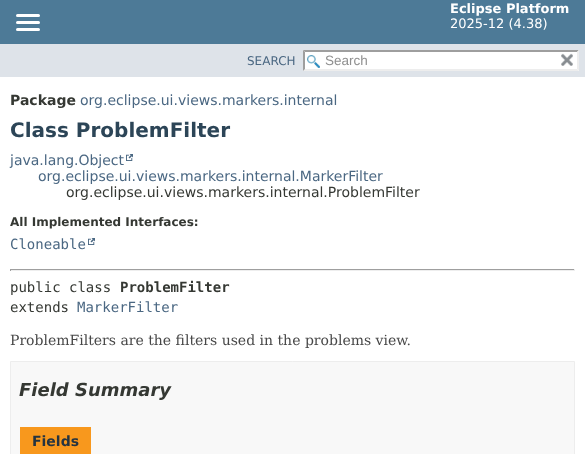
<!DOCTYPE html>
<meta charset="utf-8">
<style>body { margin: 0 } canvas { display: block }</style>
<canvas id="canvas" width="585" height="454"></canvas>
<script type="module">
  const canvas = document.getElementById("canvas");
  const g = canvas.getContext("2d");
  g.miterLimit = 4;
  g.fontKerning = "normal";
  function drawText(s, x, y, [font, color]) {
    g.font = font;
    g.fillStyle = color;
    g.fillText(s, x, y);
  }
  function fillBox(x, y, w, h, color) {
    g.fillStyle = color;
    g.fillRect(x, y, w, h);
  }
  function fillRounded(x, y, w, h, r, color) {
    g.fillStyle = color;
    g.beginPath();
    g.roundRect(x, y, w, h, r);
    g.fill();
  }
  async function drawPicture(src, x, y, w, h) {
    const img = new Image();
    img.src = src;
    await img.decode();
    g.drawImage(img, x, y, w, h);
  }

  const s1 = ["bold 13px DejaVu Sans", "#FFFFFF"];
  const s2 = ["13px DejaVu Sans", "#FFFFFF"];
  const s3 = ["12px DejaVu Sans", "#4A6782"];
  const s4 = ["13.5px Liberation Sans", "#909090"];
  const s5 = ["bold 14px DejaVu Sans", "#353833"];
  const s6 = ["14px DejaVu Sans", "#4A6782"];
  const s7 = ["bold 20px DejaVu Sans", "#2C4557"];
  const s8 = ["14px DejaVu Sans", "#353833"];
  const s9 = ["bold 12px DejaVu Sans", "#353833"];
  const s10 = ["14px DejaVu Sans Mono", "#4A6782"];
  const s11 = ["14px DejaVu Sans Mono", "#353833"];
  const s12 = ["bold 14px DejaVu Sans Mono", "#353833"];
  const s13 = ["14px DejaVu Serif", "#474747"];
  const s14 = ["italic bold 18px DejaVu Sans", "#353833"];
  const s15 = ["bold 14px DejaVu Sans", "#253441"];

  fillBox(0, 0, 585, 454, "#FFFFFF");
  fillBox(0, 0, 585, 44, "#4D7A97");
  fillRounded(16, 14, 24, 3, 1.5, "#FFFFFF");
  fillRounded(16, 21, 24, 3, 1.5, "#FFFFFF");
  fillRounded(16, 28, 24, 3, 1.5, "#FFFFFF");
  drawText("Eclipse Platform", 450, 13, s1);
  drawText("2025-12 (4.38)", 450, 28, s2);
  fillBox(0, 44, 585, 33, "#DEE3E9");
  drawText("SEARCH", 247, 65, s3);
  fillBox(303, 50, 276, 21, "#FFFFFF");
  await drawPicture("pic1.png", 307, 55, 13, 13);
  g.fillStyle = "#9E9E9E";
  g.beginPath();
  g.moveTo(303, 50);
  g.lineTo(579, 50);
  g.lineTo(577, 52);
  g.lineTo(305, 52);
  g.closePath();
  g.fill();
  g.fillStyle = "#EDEDED";
  g.beginPath();
  g.moveTo(579, 50);
  g.lineTo(579, 71);
  g.lineTo(577, 69);
  g.lineTo(577, 52);
  g.closePath();
  g.fill();
  g.beginPath();
  g.moveTo(579, 71);
  g.lineTo(303, 71);
  g.lineTo(305, 69);
  g.lineTo(577, 69);
  g.closePath();
  g.fill();
  g.fillStyle = "#9E9E9E";
  g.beginPath();
  g.moveTo(303, 71);
  g.lineTo(303, 50);
  g.lineTo(305, 52);
  g.lineTo(305, 69);
  g.closePath();
  g.fill();
  drawText("Search", 325, 65, s4);
  await drawPicture("pic2.png", 561, 53, 12, 13);
  drawText("Package", 10, 105, s5);
  drawText("org.eclipse.ui.views.markers.internal", 80, 105, s6);
  drawText("Class ProblemFilter", 10, 137, s7);
  drawText("java.lang.Object", 10, 165, s6);
  await drawPicture("pic3.png", 126, 154, 7, 7);
  drawText("org.eclipse.ui.views.markers.internal.MarkerFilter", 38, 181, s6);
  drawText("org.eclipse.ui.views.markers.internal.ProblemFilter", 66, 197, s8);
  drawText("All Implemented Interfaces:", 10, 226, s9);
  drawText("Cloneable", 10, 249, s10);
  await drawPicture("pic3.png", 88, 238, 7, 7);
  fillBox(10, 269, 565, 1, "#9F9F9F");
  fillBox(574, 269, 1, 2, "#EEEEEE");
  fillBox(10, 270, 565, 1, "#EEEEEE");
  fillBox(10, 269, 1, 2, "#9F9F9F");
  drawText("public class", 10, 292, s11);
  drawText("ProblemFilter", 120, 292, s12);
  drawText("extends", 10, 312, s11);
  drawText("MarkerFilter", 77, 312, s10);
  drawText("ProblemFilters are the filters used in the problems view.", 10, 345, s13);
  g.fillStyle = "#F8F8F8";
  g.beginPath();
  g.rect(10.5, 361.5, 564, 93);
  g.fill();
  g.strokeStyle = "#EDEDED";
  g.stroke();
  drawText("Field Summary", 19, 396, s14);
  fillBox(20, 427, 71, 27, "#F8981D");
  drawText("Fields", 32, 446, s15);
</script>
